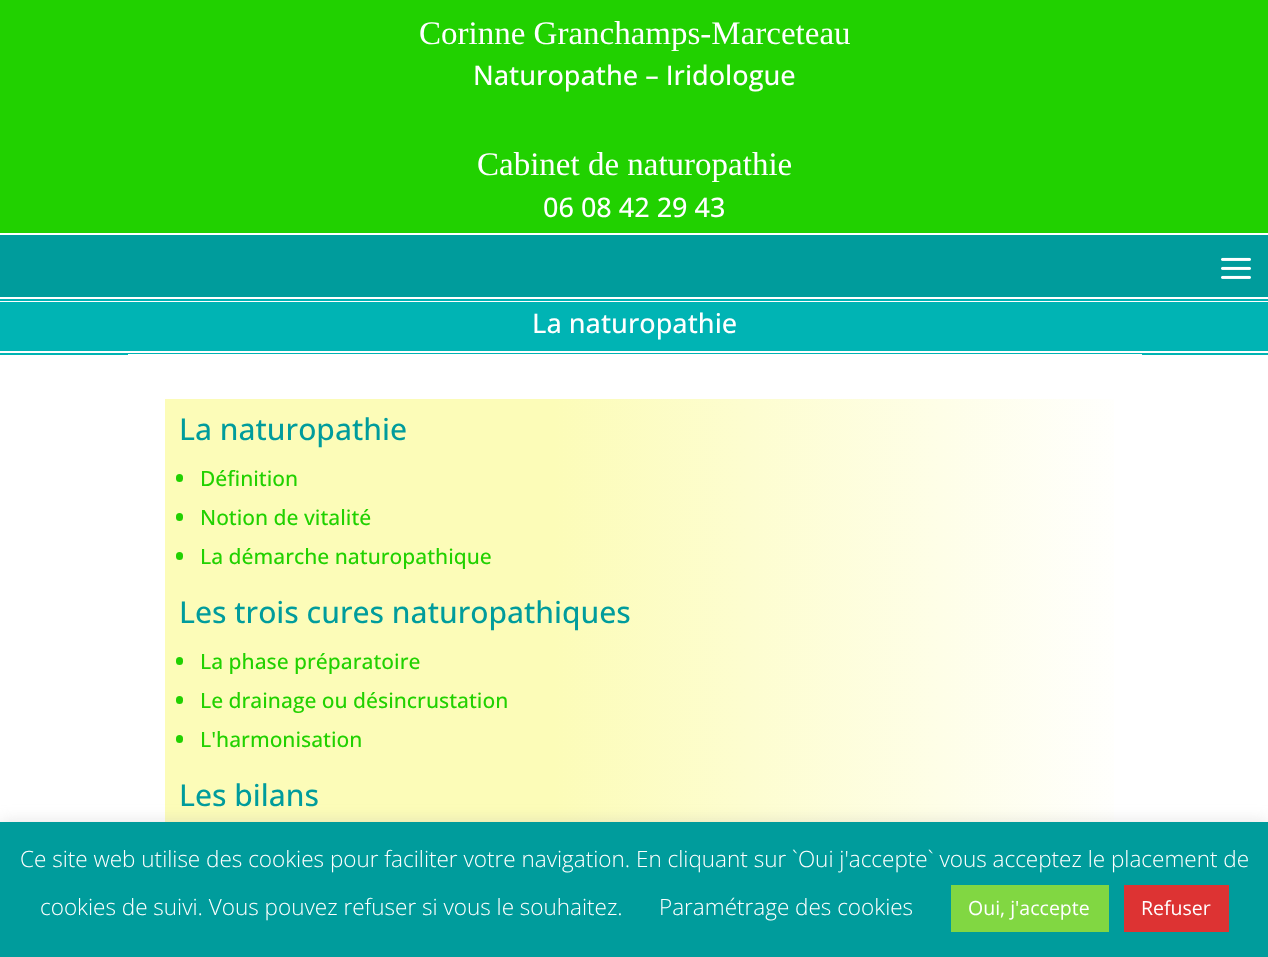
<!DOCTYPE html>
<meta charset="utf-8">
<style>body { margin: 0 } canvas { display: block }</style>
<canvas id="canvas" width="1268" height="957"></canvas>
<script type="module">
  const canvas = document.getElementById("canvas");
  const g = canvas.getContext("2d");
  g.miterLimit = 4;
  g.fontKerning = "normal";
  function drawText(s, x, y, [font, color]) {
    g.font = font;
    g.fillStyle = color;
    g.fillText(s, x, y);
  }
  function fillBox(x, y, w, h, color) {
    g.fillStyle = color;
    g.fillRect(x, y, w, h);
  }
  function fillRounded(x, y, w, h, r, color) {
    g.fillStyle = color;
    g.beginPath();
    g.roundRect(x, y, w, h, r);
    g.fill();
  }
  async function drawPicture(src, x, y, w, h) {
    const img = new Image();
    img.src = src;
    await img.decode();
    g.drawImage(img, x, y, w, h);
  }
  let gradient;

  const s1 = ["33px Liberation Serif", "#FFFFFF"];
  const s2 = ["500 27px Open Sans", "#FFFFFF"];
  const s3 = ["500 30px Open Sans", "#009C9C"];
  const s4 = ["500 21px Open Sans", "#21D100"];
  const s5 = ["300 22.5px Open Sans", "#FFFFFF"];
  const s6 = ["19.5px Open Sans", "#FFFFFF"];

  fillBox(0, 0, 1268, 957, "#FFFFFF");
  fillBox(0, 0, 1268, 233, "#21D100");
  drawText("Corinne Granchamps-Marceteau", 419, 44, s1);
  drawText("Naturopathe – Iridologue", 473, 85, s2);
  drawText("Cabinet de naturopathie", 477, 175, s1);
  drawText("06 08 42 29 43", 543, 217, s2);
  fillBox(0, 235, 1268, 62, "#009C9C");
  await drawPicture("pic1.png", 1221, 257, 30, 22);
  fillBox(0, 299, 1268, 2, "#00B4B4");
  fillBox(0, 353, 1268, 2, "#00B4B4");
  fillBox(0, 302, 1268, 49, "#00B4B4");
  drawText("La naturopathie", 532, 333, s2);
  fillBox(128, 354, 1014, 1, "#FFFFFF");
  gradient = g.createLinearGradient(165, 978, 1134, 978);
  gradient.addColorStop(0.4, "#FCFCB8");
  gradient.addColorStop(1, "#FFFFFF");
  g.fillStyle = gradient;
  g.fillRect(165, 399, 949, 423);
  drawText("La naturopathie", 179, 440, s3);
  fillRounded(176, 474, 7, 8, 3.5, "#21D100");
  drawText("Définition", 200, 486, s4);
  fillRounded(176, 513, 7, 8, 3.5, "#21D100");
  drawText("Notion de vitalité", 200, 525, s4);
  fillRounded(176, 552, 7, 8, 3.5, "#21D100");
  drawText("La démarche naturopathique", 200, 564, s4);
  drawText("Les trois cures naturopathiques", 179, 623, s3);
  fillRounded(176, 657, 7, 8, 3.5, "#21D100");
  drawText("La phase préparatoire", 200, 669, s4);
  fillRounded(176, 696, 7, 8, 3.5, "#21D100");
  drawText("Le drainage ou désincrustation", 200, 708, s4);
  fillRounded(176, 735, 7, 8, 3.5, "#21D100");
  drawText("L'harmonisation", 200, 747, s4);
  drawText("Les bilans", 179, 806, s3);
  g.fillStyle = "rgba(172, 171, 171, 0.3)";
  g.filter = "blur(7.5px)";
  g.beginPath();
  g.rect(0, 821, 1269, 135);
  g.fill();
  g.filter = "none";
  fillBox(0, 822, 1268, 135, "#009C9C");
  drawText("Ce site web utilise des cookies pour faciliter votre navigation. En cliquant sur `Oui j'accepte` vous acceptez le placement de", 20, 867, s5);
  drawText("cookies de suivi. Vous pouvez refuser si vous le souhaitez.", 40, 915, s5);
  drawText("Paramétrage des cookies", 659, 915, s5);
  fillBox(951, 885, 158, 47, "#81D742");
  drawText("Oui, j'accepte", 968, 915, s6);
  fillBox(1124, 885, 105, 47, "#DD3333");
  drawText("Refuser", 1141, 915, s6);
</script>
